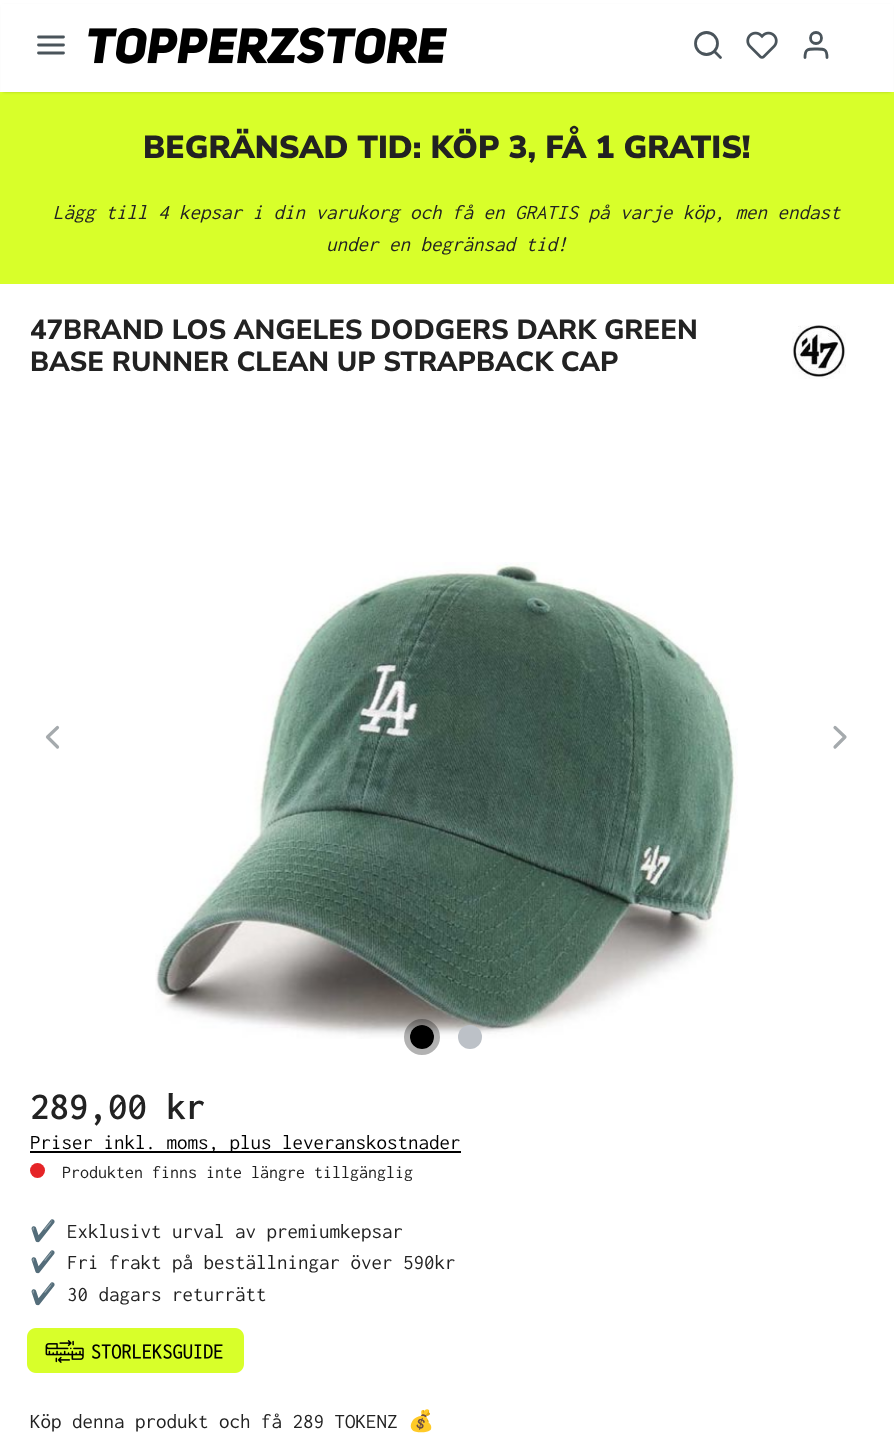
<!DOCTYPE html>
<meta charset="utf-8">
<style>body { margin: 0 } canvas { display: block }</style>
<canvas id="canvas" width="894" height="1454"></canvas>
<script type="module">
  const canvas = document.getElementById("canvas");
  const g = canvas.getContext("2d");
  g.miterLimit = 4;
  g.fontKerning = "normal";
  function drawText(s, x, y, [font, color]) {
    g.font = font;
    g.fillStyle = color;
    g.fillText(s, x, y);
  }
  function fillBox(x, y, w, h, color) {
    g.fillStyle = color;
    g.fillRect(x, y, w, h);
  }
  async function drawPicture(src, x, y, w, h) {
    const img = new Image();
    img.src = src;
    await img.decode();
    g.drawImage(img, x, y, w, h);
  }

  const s1 = ["900 31.75px Nunito Sans", "#222222"];
  const s2 = ["italic 21px Inconsolata", "#222222"];
  const s3 = ["800 27.6px Nunito Sans", "#222222"];
  const s4 = ["600 39px Inconsolata", "#222222"];
  const s5 = ["21px Inconsolata", "#000000"];
  const s6 = ["18px Inconsolata", "#222222"];
  const s7 = ["21px Noto Color Emoji", "#222222"];
  const s8 = ["21px Inconsolata", "#222222"];

  fillBox(0, 0, 894, 1454, "#FFFFFF");
  fillBox(0, 92, 894, 192, "#D8FF2A");
  g.fillStyle = "rgba(0, 0, 0, 0.2)";
  g.filter = "blur(1.5px)";
  g.beginPath();
  g.rect(3, 6, 888, 86);
  g.fill();
  g.filter = "none";
  fillBox(1, 4, 892, 88, "#FFFFFF");
  g.beginPath();
  g.moveTo(38.5, 45);
  g.lineTo(63.5, 45);
  g.moveTo(38.5, 37);
  g.lineTo(63.5, 37);
  g.moveTo(38.5, 53);
  g.lineTo(63.5, 53);
  g.strokeStyle = "#4A545B";
  g.lineWidth = 2.8;
  g.lineCap = "round";
  g.lineJoin = "round";
  g.stroke();
  await drawPicture("pic1.png", 88, 27, 359, 37);
  g.beginPath();
  g.arc(706.5, 43.5, 11, 0, Math.PI * 2);
  g.stroke();
  g.beginPath();
  g.moveTo(720.5, 57.5);
  g.lineTo(714.5, 51.5);
  g.stroke();
  await drawPicture("pic2.png", 746, 31, 32, 28);
  g.beginPath();
  g.moveTo(827, 57.5);
  g.bezierCurveTo(827, 48.5, 824, 49, 816, 49);
  g.bezierCurveTo(808, 49, 805, 48.5, 805, 57.5);
  g.stroke();
  g.beginPath();
  g.arc(816, 38, 5.5, 0, Math.PI * 2);
  g.stroke();
  drawText("BEGRÄNSAD TID: KÖP 3, FÅ 1 GRATIS!", 143, 158, s1);
  drawText("Lägg till 4 kepsar i din varukorg och få en GRATIS på varje köp, men endast", 53, 219, s2);
  drawText("under en begränsad tid!", 326, 251, s2);
  drawText("47BRAND LOS ANGELES DODGERS DARK GREEN", 30, 339, s3);
  drawText("BASE RUNNER CLEAN UP STRAPBACK CAP", 30, 371, s3);
  await drawPicture("pic3.png", 792, 325, 54, 54);
  await drawPicture("pic4.png", 155, 562, 583, 477);
  g.beginPath();
  g.moveTo(57.5, 747);
  g.lineTo(47.5, 737);
  g.lineTo(57.5, 727.5);
  g.strokeStyle = "#A5AAAD";
  g.lineWidth = 3.2;
  g.stroke();
  g.beginPath();
  g.moveTo(835, 747);
  g.lineTo(845, 737);
  g.lineTo(835, 727.5);
  g.stroke();
  g.beginPath();
  g.arc(422, 1037, 15, 0, Math.PI * 2);
  g.strokeStyle = "rgba(0, 0, 0, 0.3)";
  g.lineWidth = 6;
  g.stroke();
  g.fillStyle = "#000000";
  g.beginPath();
  g.arc(422, 1037, 12, 0, Math.PI * 2);
  g.fill();
  g.fillStyle = "#BCC1C7";
  g.beginPath();
  g.arc(470, 1037, 12, 0, Math.PI * 2);
  g.fill();
  drawText("289,00 kr", 30, 1119, s4);
  fillBox(30, 1151, 431, 2, "#000000");
  drawText("Priser inkl. moms, plus leveranskostnader", 30, 1149, s5);
  g.fillStyle = "#E52427";
  g.beginPath();
  g.arc(37.5, 1170.5, 7.5, 0, Math.PI * 2);
  g.fill();
  drawText("Produkten finns inte längre tillgänglig", 62, 1178, s6);
  drawText("✔️", 30, 1238, s7);
  drawText("Exklusivt urval av premiumkepsar", 67, 1238, s8);
  drawText("✔️", 30, 1269, s7);
  drawText("Fri frakt på beställningar över 590kr", 67, 1269, s8);
  drawText("✔️", 30, 1301, s7);
  drawText("30 dagars returrätt", 67, 1301, s8);
  await drawPicture("pic5.png", 27, 1328, 217, 45);
  drawText("Köp denna produkt och få 289 TOKENZ", 30, 1428, s8);
  drawText("💰", 408, 1428, s7);
</script>
